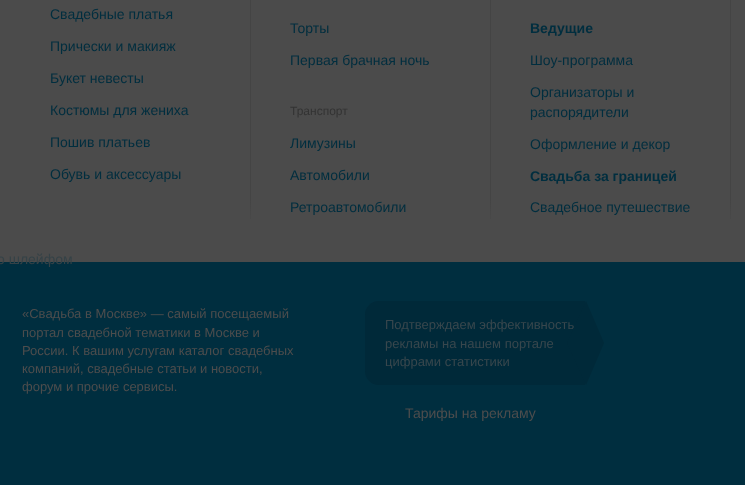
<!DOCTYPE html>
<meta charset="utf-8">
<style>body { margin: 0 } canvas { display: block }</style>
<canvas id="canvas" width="745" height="485"></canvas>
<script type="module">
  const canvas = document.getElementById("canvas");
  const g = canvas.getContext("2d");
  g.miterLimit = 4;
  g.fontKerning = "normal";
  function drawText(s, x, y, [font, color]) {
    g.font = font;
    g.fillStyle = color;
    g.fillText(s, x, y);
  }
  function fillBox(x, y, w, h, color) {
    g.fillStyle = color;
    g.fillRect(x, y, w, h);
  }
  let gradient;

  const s1 = ["14px Liberation Sans", "#002E3F"];
  const s2 = ["12px Liberation Sans", "#333333"];
  const s3 = ["bold 14px Liberation Sans", "#002E3F"];
  const s4 = ["14px Liberation Sans", "#354247"];
  const s5 = ["13px Liberation Sans", "#4D4D4D"];
  const s6 = ["13px Liberation Sans", "#38474D"];
  const s7 = ["14px Liberation Sans", "#4D4D4D"];

  fillBox(0, 0, 745, 485, "#4B4B4B");
  drawText("Свадебные платья", 50, 19, s1);
  drawText("Прически и макияж", 50, 51, s1);
  drawText("Букет невесты", 50, 83, s1);
  drawText("Костюмы для жениха", 50, 115, s1);
  drawText("Пошив платьев", 50, 147, s1);
  drawText("Обувь и аксессуары", 50, 179, s1);
  gradient = g.createLinearGradient(250, -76, 251, 230);
  gradient.addColorStop(0, "#4B4B4B");
  gradient.addColorStop(0.1, "#444444");
  gradient.addColorStop(0.9, "#444444");
  gradient.addColorStop(1, "#4B4B4B");
  g.fillStyle = gradient;
  g.fillRect(250, 0, 1, 219);
  drawText("Торты", 290, 33, s1);
  drawText("Первая брачная ночь", 290, 65, s1);
  drawText("Транспорт", 290, 115, s2);
  drawText("Лимузины", 290, 148, s1);
  drawText("Автомобили", 290, 180, s1);
  drawText("Ретроавтомобили", 290, 212, s1);
  gradient = g.createLinearGradient(491, -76, 491, 230);
  gradient.addColorStop(0, "#4B4B4B");
  gradient.addColorStop(0.1, "#444444");
  gradient.addColorStop(0.9, "#444444");
  gradient.addColorStop(1, "#4B4B4B");
  g.fillStyle = gradient;
  g.fillRect(490, 0, 1, 219);
  drawText("Ведущие", 530, 33, s3);
  drawText("Шоу-программа", 530, 65, s1);
  drawText("Организаторы и", 530, 97, s1);
  drawText("распорядители", 530, 117, s1);
  drawText("Оформление и декор", 530, 149, s1);
  drawText("Свадьба за границей", 530, 181, s3);
  drawText("Свадебное путешествие", 530, 212, s1);
  gradient = g.createLinearGradient(731, -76, 731, 230);
  gradient.addColorStop(0, "#4B4B4B");
  gradient.addColorStop(0.1, "#444444");
  gradient.addColorStop(0.9, "#444444");
  gradient.addColorStop(1, "#4B4B4B");
  g.fillStyle = gradient;
  g.fillRect(730, 0, 1, 219);
  fillBox(0, 262, 745, 223, "#002E3F");
  drawText("о шлейфом", -3, 264, s4);
  drawText("«Свадьба в Москве» — самый посещаемый", 22, 318, s5);
  drawText("портал свадебной тематики в Москве и", 22, 337, s5);
  drawText("России. К вашим услугам каталог свадебных", 22, 355, s5);
  drawText("компаний, свадебные статьи и новости,", 22, 373, s5);
  drawText("форум и прочие сервисы.", 22, 391, s5);
  g.fillStyle = "#002939";
  g.beginPath();
  g.roundRect(365, 301, 220, 84, [14, 0, 0, 14]);
  g.fill();
  drawText("Подтверждаем эффективность", 385, 329, s6);
  g.fillStyle = "#002939";
  g.beginPath();
  g.moveTo(586, 301);
  g.lineTo(604, 343);
  g.lineTo(586, 385);
  g.lineTo(567, 343);
  g.closePath();
  g.fill();
  drawText("рекламы на нашем портале", 385, 348, s6);
  drawText("цифрами статистики", 385, 366, s6);
  drawText("Тарифы на рекламу", 405, 418, s7);
</script>
